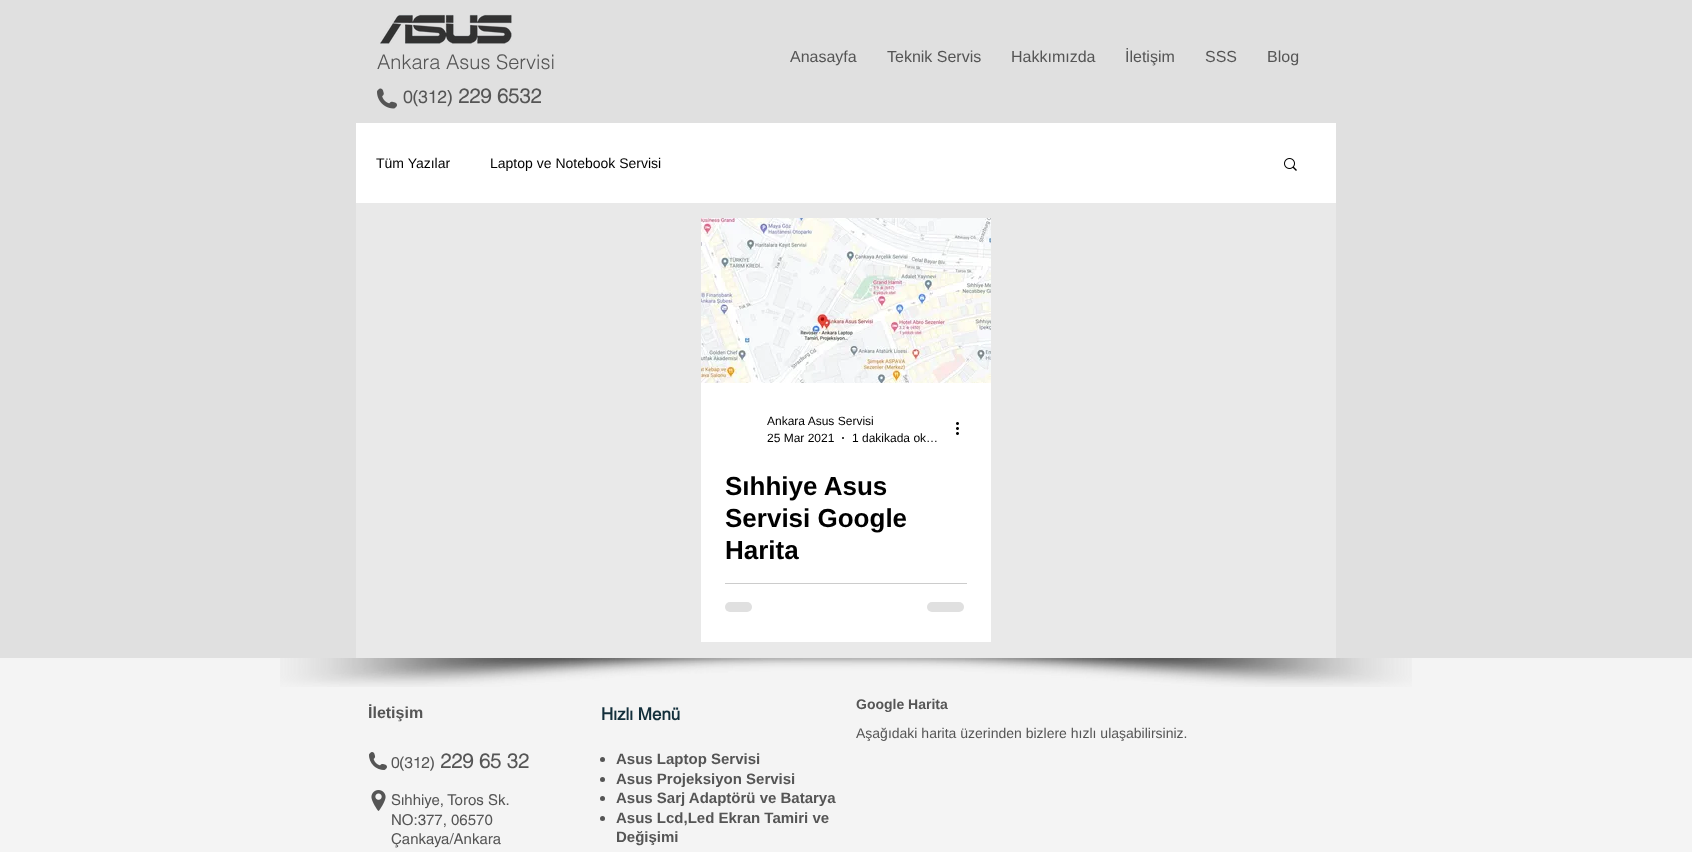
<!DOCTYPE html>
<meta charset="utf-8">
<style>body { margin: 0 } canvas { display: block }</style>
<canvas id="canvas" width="1692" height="852"></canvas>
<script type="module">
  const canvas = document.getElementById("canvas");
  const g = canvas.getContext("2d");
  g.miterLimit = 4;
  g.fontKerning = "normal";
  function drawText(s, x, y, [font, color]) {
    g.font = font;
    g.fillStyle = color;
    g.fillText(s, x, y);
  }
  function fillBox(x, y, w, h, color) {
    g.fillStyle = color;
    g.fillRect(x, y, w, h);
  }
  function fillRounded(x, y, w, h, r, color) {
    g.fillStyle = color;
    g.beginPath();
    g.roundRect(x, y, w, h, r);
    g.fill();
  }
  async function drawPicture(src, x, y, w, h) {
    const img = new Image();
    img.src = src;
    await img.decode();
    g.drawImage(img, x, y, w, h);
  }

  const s1 = ["300 20px helvetica", "#555555"];
  const s2 = ["16px Liberation Sans", "#555555"];
  const s3 = ["bold 17px helvetica", "#555555"];
  const s4 = ["bold 20px helvetica", "#555555"];
  const s5 = ["14px Liberation Sans", "#000000"];
  const s6 = ["12px Liberation Sans", "#000000"];
  const s7 = ["bold 26px Liberation Sans", "#000000"];
  const s8 = ["bold 16px Liberation Sans", "#555555"];
  const s9 = ["bold 17px 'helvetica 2'", "#132F3B"];
  const s10 = ["bold 14px Liberation Sans", "#555555"];
  const s11 = ["14px Liberation Sans", "#555555"];
  const s12 = ["bold 15px helvetica", "#555555"];
  const s13 = ["bold 15px Liberation Sans", "#555555"];
  const s14 = ["15px helvetica", "#555555"];

  fillBox(0, 0, 1692, 852, "#E0E0E0");
  await drawPicture("pic1.png", 380, 14, 132, 30);
  drawText("Ankara Asus Servisi", 377, 69, s1);
  drawText("Anasayfa", 790, 62, s2);
  drawText("Teknik Servis", 887, 62, s2);
  drawText("Hakkımızda", 1011, 62, s2);
  drawText("İletişim", 1125, 62, s2);
  drawText("SSS", 1205, 62, s2);
  drawText("Blog", 1267, 62, s2);
  await drawPicture("pic2.png", 377, 88, 20, 21);
  drawText("0(312)", 403, 103, s3);
  drawText("229 6532", 458, 103, s4);
  fillBox(356, 203, 980, 455, "#E9E9E9");
  fillBox(356, 123, 980, 80, "#FFFFFF");
  drawText("Tüm Yazılar", 376, 168, s5);
  drawText("Laptop ve Notebook Servisi", 490, 168, s5);
  await drawPicture("pic3.png", 1284, 158, 13, 13);
  fillBox(701, 383, 290, 259, "#FFFFFF");
  await drawPicture("pic4.png", 701, 218, 290, 165);
  drawText("Ankara Asus Servisi", 767, 425, s6);
  drawText("25 Mar 2021", 767, 442, s6);
  g.beginPath();
  g.arc(843, 438, 1, 0, Math.PI * 2);
  g.fill();
  drawText("1 dakikada ok…", 852, 442, s6);
  await drawPicture("pic5.png", 956, 422, 3, 13);
  drawText("Sıhhiye Asus", 725, 495, s7);
  drawText("Servisi Google", 725, 527, s7);
  drawText("Harita", 725, 559, s7);
  fillBox(725, 583, 242, 1, "#CCCCCC");
  fillRounded(725, 602, 27, 10, 5, "#E0E0E0");
  fillRounded(927, 602, 37, 10, 5, "#E0E0E0");
  fillBox(0, 658, 1692, 194, "#F4F4F4");
  await drawPicture("pic6.png", 280, 658, 1132, 29);
  drawText("İletişim", 368, 718, s8);
  drawText("Hızlı Menü", 601, 720, s9);
  drawText("Google Harita", 856, 709, s10);
  drawText("Aşağıdaki harita üzerinden bizlere hızlı ulaşabilirsiniz.", 856, 738, s11);
  await drawPicture("pic7.png", 369, 752, 18, 18);
  drawText("0(312)", 391, 768, s12);
  drawText("229 65 32", 440, 768, s4);
  g.beginPath();
  g.arc(602.5, 759.5, 2.5, 0, Math.PI * 2);
  g.fill();
  drawText("Asus Laptop Servisi", 616, 764, s13);
  g.beginPath();
  g.arc(602.5, 779.5, 2.5, 0, Math.PI * 2);
  g.fill();
  drawText("Asus Projeksiyon Servisi", 616, 784, s13);
  g.beginPath();
  g.arc(602.5, 798.5, 2.5, 0, Math.PI * 2);
  g.fill();
  drawText("Asus Sarj Adaptörü ve Batarya", 616, 803, s13);
  g.beginPath();
  g.arc(602.5, 818.5, 2.5, 0, Math.PI * 2);
  g.fill();
  drawText("Asus Lcd,Led Ekran Tamiri ve", 616, 823, s13);
  drawText("Değişimi", 616, 842, s13);
  await drawPicture("pic8.png", 371, 790, 15, 21);
  drawText("Sıhhiye, Toros Sk.", 391, 805, s14);
  drawText("NO:377, 06570", 391, 825, s14);
  drawText("Çankaya/Ankara", 391, 844, s14);
</script>
